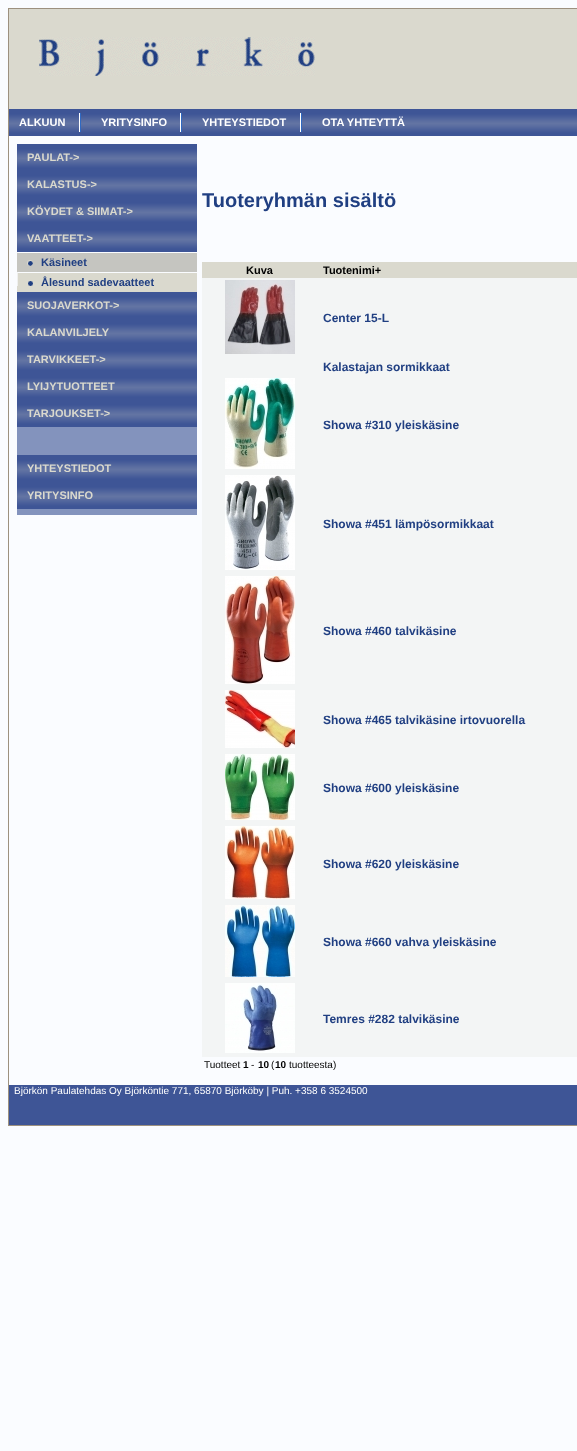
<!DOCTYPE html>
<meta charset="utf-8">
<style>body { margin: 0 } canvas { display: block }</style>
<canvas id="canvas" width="577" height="1451"></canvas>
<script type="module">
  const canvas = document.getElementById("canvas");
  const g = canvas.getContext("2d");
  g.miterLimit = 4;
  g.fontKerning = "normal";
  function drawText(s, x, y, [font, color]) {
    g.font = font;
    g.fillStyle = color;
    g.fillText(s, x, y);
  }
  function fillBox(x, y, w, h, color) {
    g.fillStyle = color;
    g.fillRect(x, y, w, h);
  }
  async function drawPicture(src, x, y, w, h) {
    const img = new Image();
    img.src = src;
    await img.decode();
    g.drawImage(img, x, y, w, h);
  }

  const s1 = ["bold 11px Liberation Sans", "#FFFFFF"];
  const s2 = ["bold 11px Liberation Sans", "#DAD9CE"];
  const s3 = ["bold 11px Liberation Sans", "#203F82"];
  const s4 = ["bold 20px Liberation Sans", "#203F82"];
  const s5 = ["bold 11px Liberation Sans", "#000000"];
  const s6 = ["bold 12px Liberation Sans", "#203F82"];
  const s7 = ["10px Liberation Sans", "#000000"];
  const s8 = ["bold 10px Liberation Sans", "#000000"];
  const s9 = ["10px Liberation Sans", "#FFFFFF"];

  fillBox(0, 0, 577, 1451, "#FAFCFF");
  fillBox(9, 9, 568, 100, "#DAD9CE");
  fillBox(8, 8, 569, 1, "#9D917F");
  fillBox(8, 8, 1, 1077, "#9D917F");
  await drawPicture("pic1.png", 39, 37, 276, 39);
  await drawPicture("pic2.png", 9, 109, 568, 27);
  drawText("ALKUUN", 19, 126, s1);
  await drawPicture("pic3.png", 79, 113, 2, 19);
  drawText("YRITYSINFO", 101, 126, s1);
  await drawPicture("pic3.png", 180, 113, 2, 19);
  drawText("YHTEYSTIEDOT", 202, 126, s1);
  await drawPicture("pic3.png", 300, 113, 2, 19);
  drawText("OTA YHTEYTTÄ", 322, 126, s1);
  fillBox(17, 427, 180, 88, "#8393BD");
  await drawPicture("pic4.png", 17, 144, 180, 27);
  drawText("PAULAT->", 27, 161, s2);
  await drawPicture("pic4.png", 17, 171, 180, 27);
  drawText("KALASTUS->", 27, 188, s2);
  await drawPicture("pic4.png", 17, 198, 180, 27);
  drawText("KÖYDET & SIIMAT->", 27, 215, s2);
  await drawPicture("pic4.png", 17, 225, 180, 27);
  drawText("VAATTEET->", 27, 242, s2);
  await drawPicture("pic5.png", 17, 252, 180, 20);
  drawText("Käsineet", 41, 266, s3);
  await drawPicture("pic6.png", 17, 272, 180, 20);
  drawText("Ålesund sadevaatteet", 41, 286, s3);
  await drawPicture("pic4.png", 17, 292, 180, 27);
  drawText("SUOJAVERKOT->", 27, 309, s2);
  await drawPicture("pic4.png", 17, 319, 180, 27);
  drawText("KALANVILJELY", 27, 336, s2);
  await drawPicture("pic4.png", 17, 346, 180, 27);
  drawText("TARVIKKEET->", 27, 363, s2);
  await drawPicture("pic4.png", 17, 373, 180, 27);
  drawText("LYIJYTUOTTEET", 27, 390, s2);
  await drawPicture("pic4.png", 17, 400, 180, 27);
  drawText("TARJOUKSET->", 27, 417, s2);
  await drawPicture("pic4.png", 17, 455, 180, 27);
  drawText("YHTEYSTIEDOT", 27, 472, s2);
  await drawPicture("pic4.png", 17, 482, 180, 27);
  drawText("YRITYSINFO", 27, 499, s2);
  drawText("Tuoteryhmän sisältö", 202, 207, s4);
  fillBox(202, 262, 375, 16, "#DAD9CE");
  drawText("Kuva", 246, 274, s5);
  drawText("Tuotenimi+", 323, 274, s5);
  fillBox(202, 278, 375, 80, "#F3F5F5");
  await drawPicture("pic7.png", 225, 280, 70, 74);
  drawText("Center 15-L", 323, 322, s6);
  fillBox(202, 358, 375, 18, "#F3F5F5");
  drawText("Kalastajan sormikkaat", 323, 371, s6);
  fillBox(202, 376, 375, 97, "#F3F5F5");
  await drawPicture("pic8.png", 225, 378, 70, 91);
  drawText("Showa #310 yleiskäsine", 323, 429, s6);
  fillBox(202, 473, 375, 101, "#F3F5F5");
  await drawPicture("pic9.png", 225, 475, 70, 95);
  drawText("Showa #451 lämpösormikkaat", 323, 528, s6);
  fillBox(202, 574, 375, 114, "#F3F5F5");
  await drawPicture("pic10.png", 225, 576, 70, 108);
  drawText("Showa #460 talvikäsine", 323, 635, s6);
  fillBox(202, 688, 375, 64, "#F3F5F5");
  await drawPicture("pic11.png", 225, 690, 70, 58);
  drawText("Showa #465 talvikäsine irtovuorella", 323, 724, s6);
  fillBox(202, 752, 375, 72, "#F3F5F5");
  await drawPicture("pic12.png", 225, 754, 70, 66);
  drawText("Showa #600 yleiskäsine", 323, 792, s6);
  fillBox(202, 824, 375, 79, "#F3F5F5");
  await drawPicture("pic13.png", 225, 826, 70, 73);
  drawText("Showa #620 yleiskäsine", 323, 868, s6);
  fillBox(202, 903, 375, 78, "#F3F5F5");
  await drawPicture("pic14.png", 225, 905, 70, 72);
  drawText("Showa #660 vahva yleiskäsine", 323, 946, s6);
  fillBox(202, 981, 375, 76, "#F3F5F5");
  await drawPicture("pic15.png", 225, 983, 70, 70);
  drawText("Temres #282 talvikäsine", 323, 1023, s6);
  drawText("Tuotteet", 204, 1068, s7);
  drawText("1", 243, 1068, s8);
  drawText("-", 251, 1068, s7);
  drawText("10", 258, 1068, s8);
  drawText("(", 271, 1068, s7);
  drawText("10", 275, 1068, s8);
  drawText("tuotteesta)", 289, 1068, s7);
  fillBox(9, 1085, 568, 40, "#3E5596");
  fillBox(8, 1125, 569, 1, "#9D917F");
  fillBox(8, 1085, 1, 41, "#9D917F");
  drawText("Björkön Paulatehdas Oy Björköntie 771, 65870 Björköby | Puh. +358 6 3524500", 14, 1094, s9);
</script>
